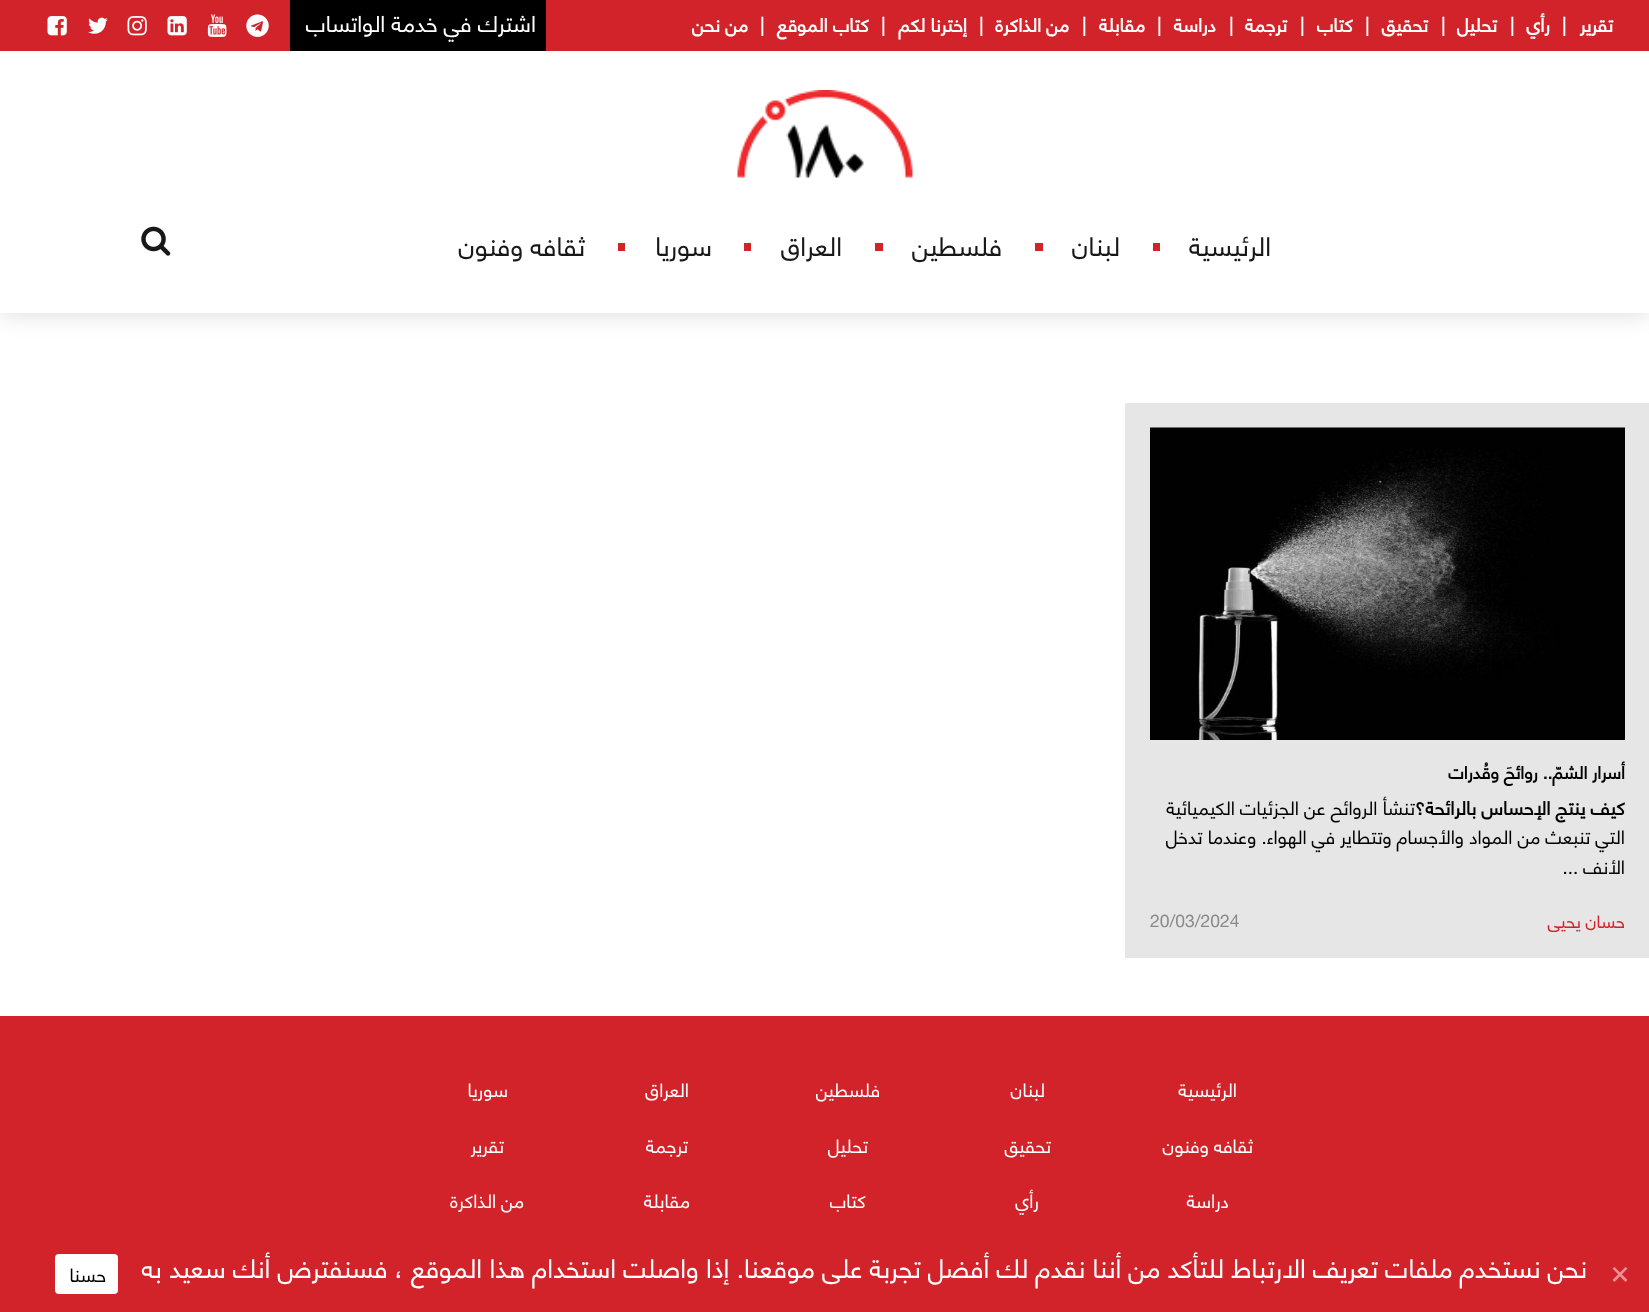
<!DOCTYPE html>
<meta charset="utf-8">
<style>body { margin: 0 } canvas { display: block }</style>
<canvas id="canvas" width="1649" height="1312"></canvas>
<script type="module">
  const canvas = document.getElementById("canvas");
  const g = canvas.getContext("2d");
  g.miterLimit = 4;
  g.fontKerning = "normal";
  function drawText(s, x, y, [font, color]) {
    g.font = font;
    g.fillStyle = color;
    g.fillText(s, x, y);
  }
  function fillBox(x, y, w, h, color) {
    g.fillStyle = color;
    g.fillRect(x, y, w, h);
  }
  function fillRounded(x, y, w, h, r, color) {
    g.fillStyle = color;
    g.beginPath();
    g.roundRect(x, y, w, h, r);
    g.fill();
  }
  async function drawPicture(src, x, y, w, h) {
    const img = new Image();
    img.src = src;
    await img.decode();
    g.drawImage(img, x, y, w, h);
  }

  const s1 = ["bold 18.75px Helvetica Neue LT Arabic", "#FFFFFF"];
  const s2 = ["22.5px Helvetica Neue LT Arabic", "#FFFFFF"];
  const s3 = ["26.25px Helvetica Neue LT Arabic", "#181818"];
  const s4 = ["bold 17.5px Helvetica Neue LT Arabic", "#000000"];
  const s5 = ["bold 18.75px Helvetica Neue LT Arabic", "#000000"];
  const s6 = ["18.75px Helvetica Neue LT Arabic", "#000000"];
  const s7 = ["17.5px Helvetica Neue LT Arabic", "#D2232A"];
  const s8 = ["17.5px Helvetica Neue LT Arabic", "#898989"];
  const s9 = ["18.75px Helvetica Neue LT Arabic", "#FFFFFF"];
  const s10 = ["26.25px Helvetica Neue LT Arabic", "#FFFFFF"];

  fillBox(0, 0, 1649, 1312, "#FFFFFF");
  g.fillStyle = "rgba(0, 0, 0, 0.15)";
  g.filter = "blur(12.5px)";
  g.beginPath();
  g.rect(0, 0, 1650, 313);
  g.fill();
  g.filter = "none";
  fillBox(0, 51, 1649, 262, "#FFFFFF");
  fillBox(0, 0, 1649, 51, "#D2232A");
  g.direction = "rtl";
  drawText("تقرير", 1613, 32, s1);
  g.direction = "ltr";
  drawText("|", 1562, 32, s1);
  g.direction = "rtl";
  drawText("رأي", 1550, 32, s1);
  g.direction = "ltr";
  drawText("|", 1510, 32, s1);
  g.direction = "rtl";
  drawText("تحليل", 1497, 32, s1);
  g.direction = "ltr";
  drawText("|", 1441, 32, s1);
  g.direction = "rtl";
  drawText("تحقيق", 1428, 32, s1);
  g.direction = "ltr";
  drawText("|", 1365, 32, s1);
  g.direction = "rtl";
  drawText("كتاب", 1353, 32, s1);
  g.direction = "ltr";
  drawText("|", 1300, 32, s1);
  g.direction = "rtl";
  drawText("ترجمة", 1287, 32, s1);
  g.direction = "ltr";
  drawText("|", 1229, 32, s1);
  g.direction = "rtl";
  drawText("دراسة", 1216, 32, s1);
  g.direction = "ltr";
  drawText("|", 1157, 32, s1);
  g.direction = "rtl";
  drawText("مقابلة", 1145, 32, s1);
  g.direction = "ltr";
  drawText("|", 1082, 32, s1);
  g.direction = "rtl";
  drawText("من الذاكرة", 1069, 32, s1);
  g.direction = "ltr";
  drawText("|", 979, 32, s1);
  g.direction = "rtl";
  drawText("إخترنا لكم", 967, 32, s1);
  g.direction = "ltr";
  drawText("|", 881, 32, s1);
  g.direction = "rtl";
  drawText("كتاب الموقع", 869, 32, s1);
  g.direction = "ltr";
  drawText("|", 760, 32, s1);
  g.direction = "rtl";
  drawText("من نحن", 748, 32, s1);
  fillBox(290, 0, 256, 51, "#000000");
  drawText("اشترك في خدمة الواتساب", 536, 32, s2);
  await drawPicture("pic1.png", 246, 14, 23, 23);
  await drawPicture("pic2.png", 207, 14, 20, 23);
  await drawPicture("pic3.png", 167, 16, 20, 20);
  await drawPicture("pic4.png", 127, 16, 20, 20);
  await drawPicture("pic5.png", 88, 17, 20, 17);
  await drawPicture("pic6.png", 47, 16, 20, 20);
  await drawPicture("pic7.png", 737, 90, 176, 88);
  drawText("الرئيسية", 1271, 256, s3);
  fillBox(1153, 243, 7, 8, "#D2232A");
  drawText("لبنان", 1120, 256, s3);
  fillBox(1035, 243, 8, 8, "#D2232A");
  drawText("فلسطين", 1002, 256, s3);
  fillBox(875, 243, 8, 8, "#D2232A");
  drawText("العراق", 842, 256, s3);
  fillBox(744, 243, 7, 8, "#D2232A");
  drawText("سوريا", 712, 256, s3);
  fillBox(618, 243, 7, 8, "#D2232A");
  drawText("ثقافه وفنون", 585, 256, s3);
  await drawPicture("pic8.png", 141, 226, 30, 30);
  fillBox(1125, 403, 524, 555, "#E6E6E6");
  await drawPicture("pic9.png", 1150, 427, 475, 313);
  drawText("أسرار الشمّ.. روائحَ وقُدرات", 1625, 779, s4);
  drawText("كيف ينتج الإحساس بالرائحة؟", 1625, 815, s5);
  drawText("تنشأ الروائح عن الجزئيات الكيميائية", 1415, 815, s6);
  drawText("التي تنبعث من المواد والأجسام وتتطاير في الهواء. وعندما تدخل", 1625, 844, s6);
  drawText("الأنف ...", 1625, 874, s6);
  drawText("حسان يحيى", 1625, 928, s7);
  g.direction = "ltr";
  drawText("20/03/2024", 1150, 927, s8);
  fillBox(0, 1016, 1649, 296, "#D2232A");
  g.direction = "rtl";
  drawText("الرئيسية", 1237, 1097, s9);
  drawText("لبنان", 1045, 1097, s9);
  drawText("فلسطين", 880, 1097, s9);
  drawText("العراق", 689, 1097, s9);
  drawText("سوريا", 508, 1097, s9);
  drawText("ثقافه وفنون", 1253, 1153, s9);
  drawText("تحقيق", 1051, 1153, s9);
  drawText("تحليل", 868, 1153, s9);
  drawText("ترجمة", 688, 1153, s9);
  drawText("تقرير", 504, 1153, s9);
  drawText("دراسة", 1229, 1208, s9);
  drawText("رأي", 1039, 1208, s9);
  drawText("كتاب", 866, 1208, s9);
  drawText("مقابلة", 690, 1208, s9);
  drawText("من الذاكرة", 524, 1208, s9);
  g.fillStyle = "#E99195";
  g.beginPath();
  g.moveTo(1625.5, 1267);
  g.lineTo(1627.5, 1268.5);
  g.lineTo(1614.5, 1282);
  g.lineTo(1612.5, 1280);
  g.closePath();
  g.fill();
  g.beginPath();
  g.moveTo(1612.5, 1268.5);
  g.lineTo(1614.5, 1267);
  g.lineTo(1627.5, 1280);
  g.lineTo(1625.5, 1282);
  g.closePath();
  g.fill();
  drawText("نحن نستخدم ملفات تعريف الارتباط للتأكد من أننا نقدم لك أفضل تجربة على موقعنا. إذا واصلت استخدام هذا الموقع ، فسنفترض أنك سعيد به", 1587, 1278, s10);
  fillRounded(55, 1254, 63, 40, 4, "#FFFFFF");
  g.letterSpacing = "0.5px";
  drawText("حسنا", 106, 1282, s6);
</script>
